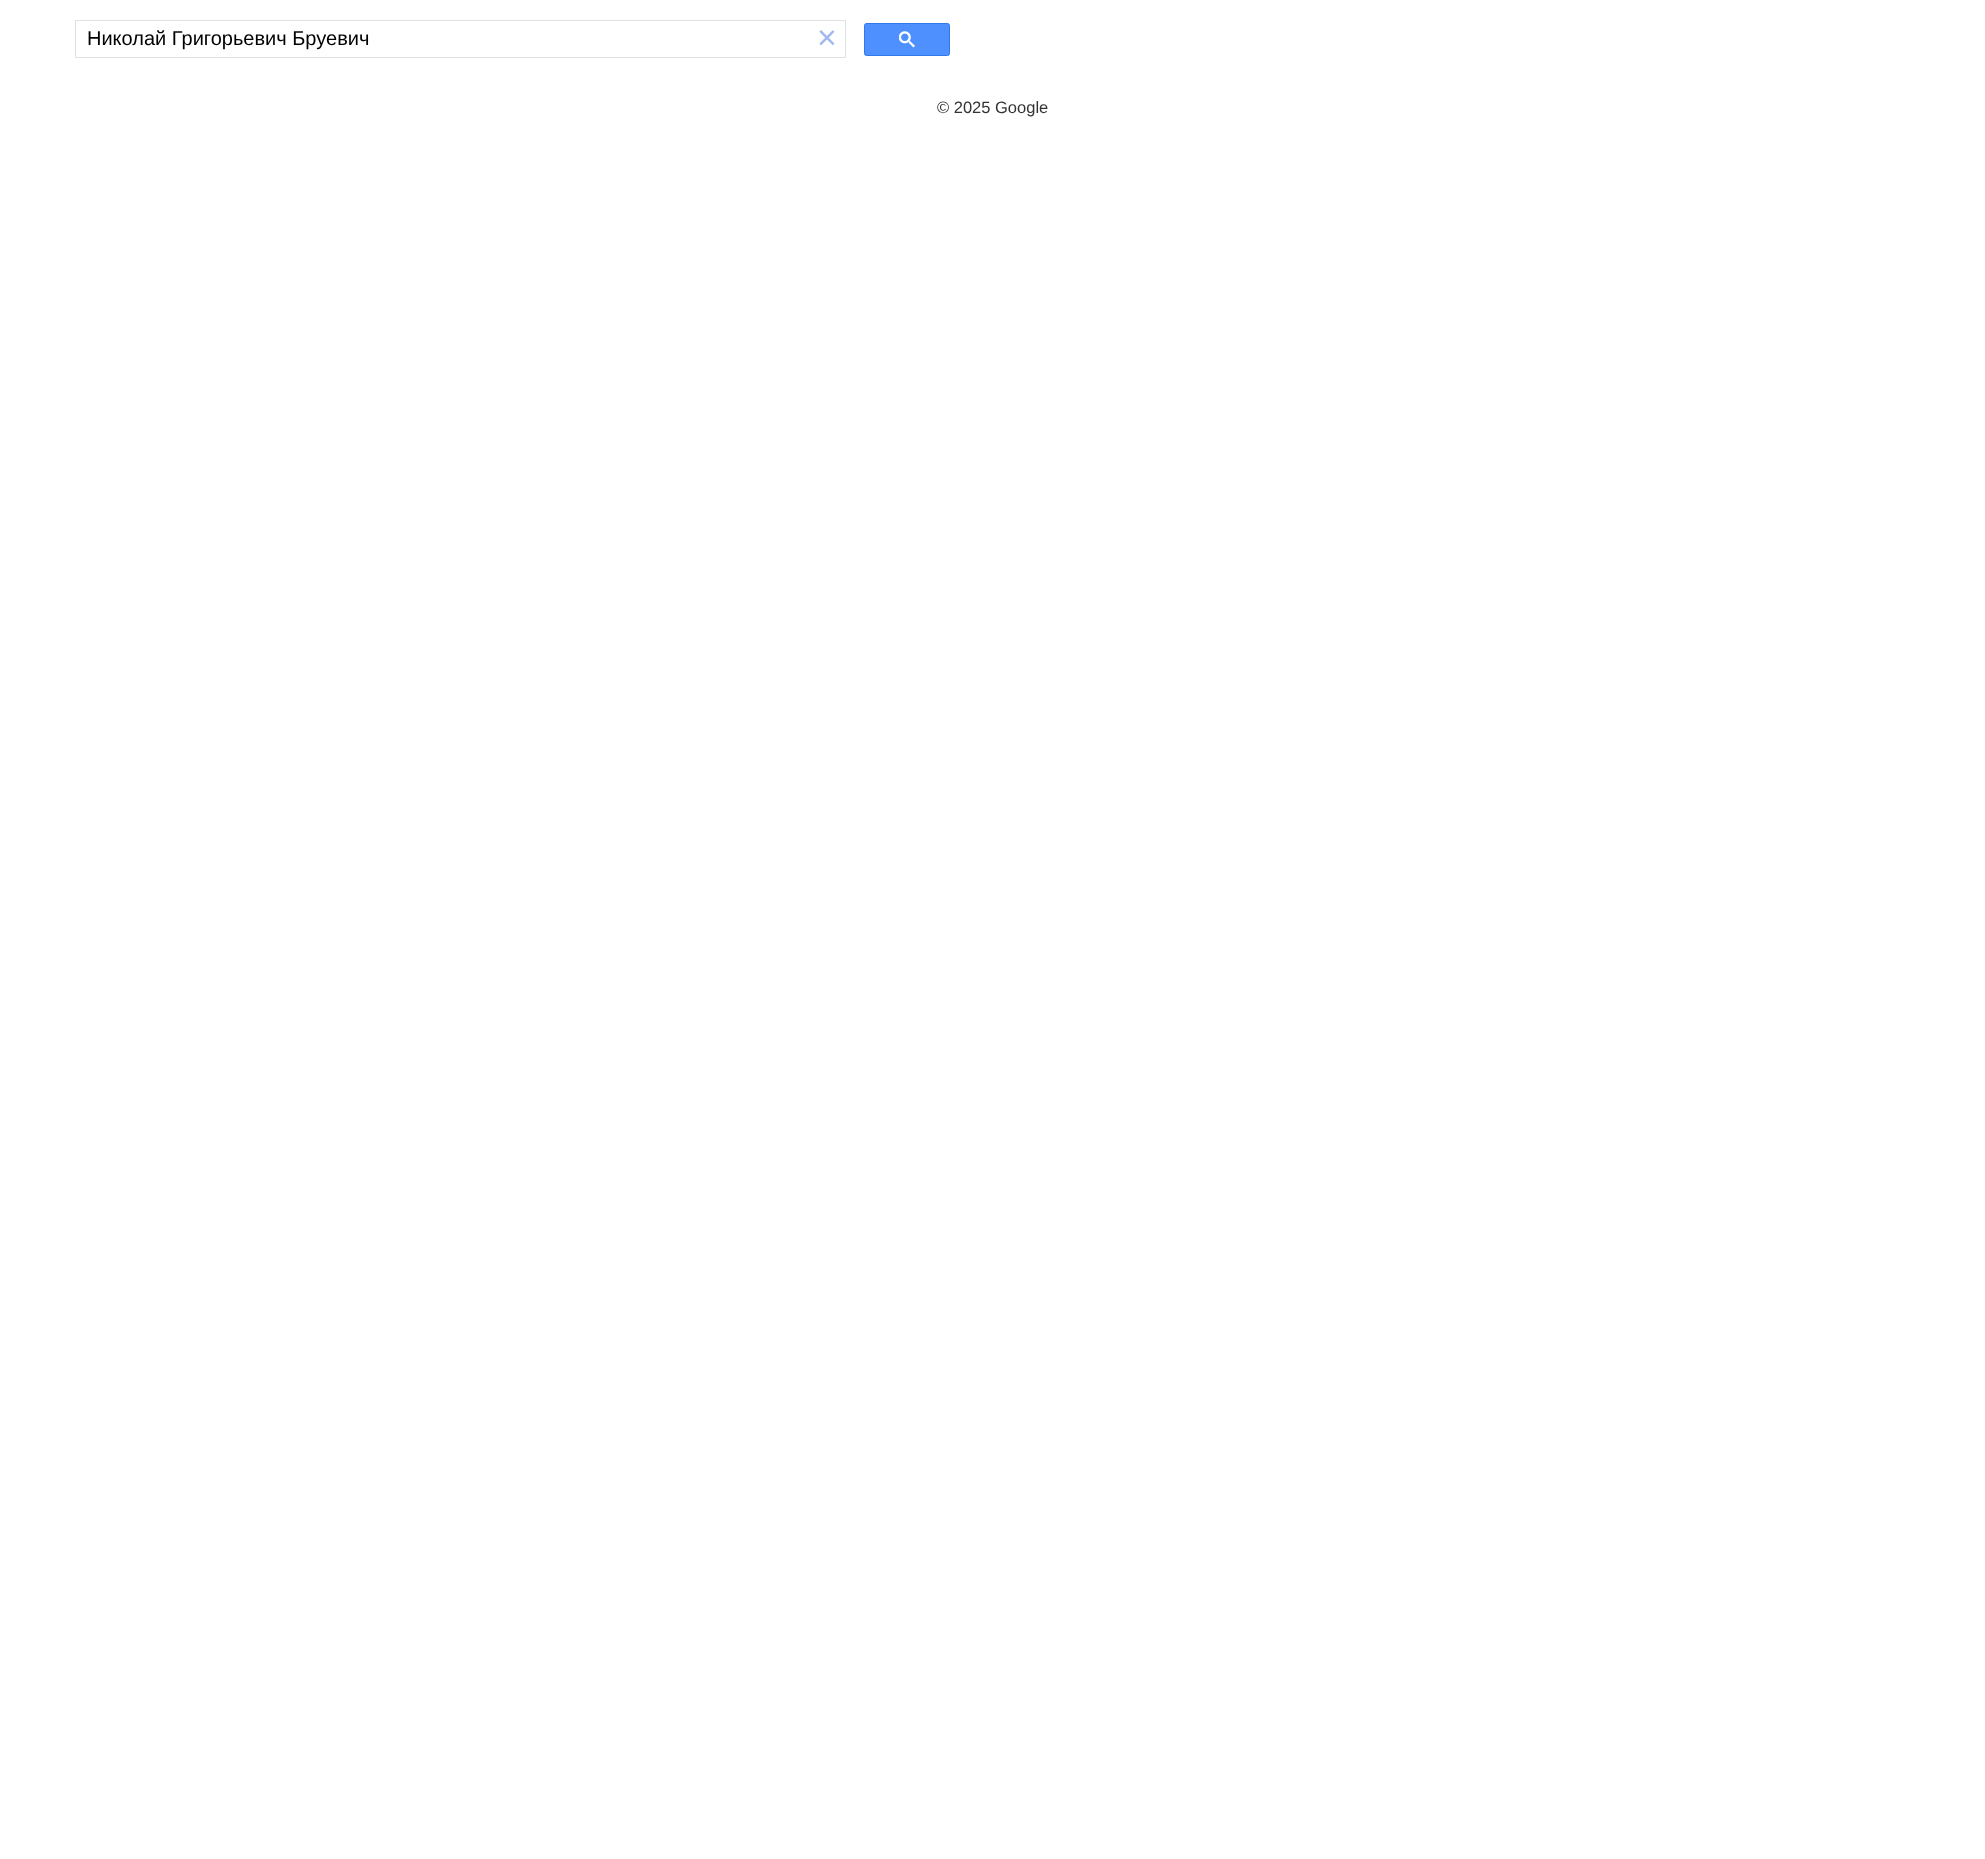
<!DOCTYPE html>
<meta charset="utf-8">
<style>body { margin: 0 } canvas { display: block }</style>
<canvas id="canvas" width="1985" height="1859"></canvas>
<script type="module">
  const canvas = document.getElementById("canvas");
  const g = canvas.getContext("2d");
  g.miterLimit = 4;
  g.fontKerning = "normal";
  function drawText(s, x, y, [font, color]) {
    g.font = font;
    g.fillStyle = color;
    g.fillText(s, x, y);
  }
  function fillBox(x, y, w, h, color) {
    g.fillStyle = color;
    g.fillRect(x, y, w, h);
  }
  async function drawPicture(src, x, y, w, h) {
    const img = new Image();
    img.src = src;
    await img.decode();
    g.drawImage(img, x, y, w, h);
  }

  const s1 = ["20px Liberation Sans", "#000000"];
  const s2 = ["34px Liberation Sans", "#A1B9ED"];
  const s3 = ["16.5px Liberation Sans", "#333333"];

  fillBox(0, 0, 1985, 1859, "#FFFFFF");
  g.strokeStyle = "#DFE1E5";
  g.strokeRect(75.5, 20.5, 770, 37);
  drawText("Николай Григорьевич Бруевич", 87, 45, s1);
  drawText("×", 817, 49, s2);
  g.fillStyle = "#4D90FE";
  g.beginPath();
  g.roundRect(864.5, 23.5, 85, 32, 2);
  g.fill();
  g.strokeStyle = "#3079ED";
  g.stroke();
  await drawPicture("pic1.png", 899, 31, 16, 17);
  drawText("© 2025 Google", 937, 113, s3);
</script>
